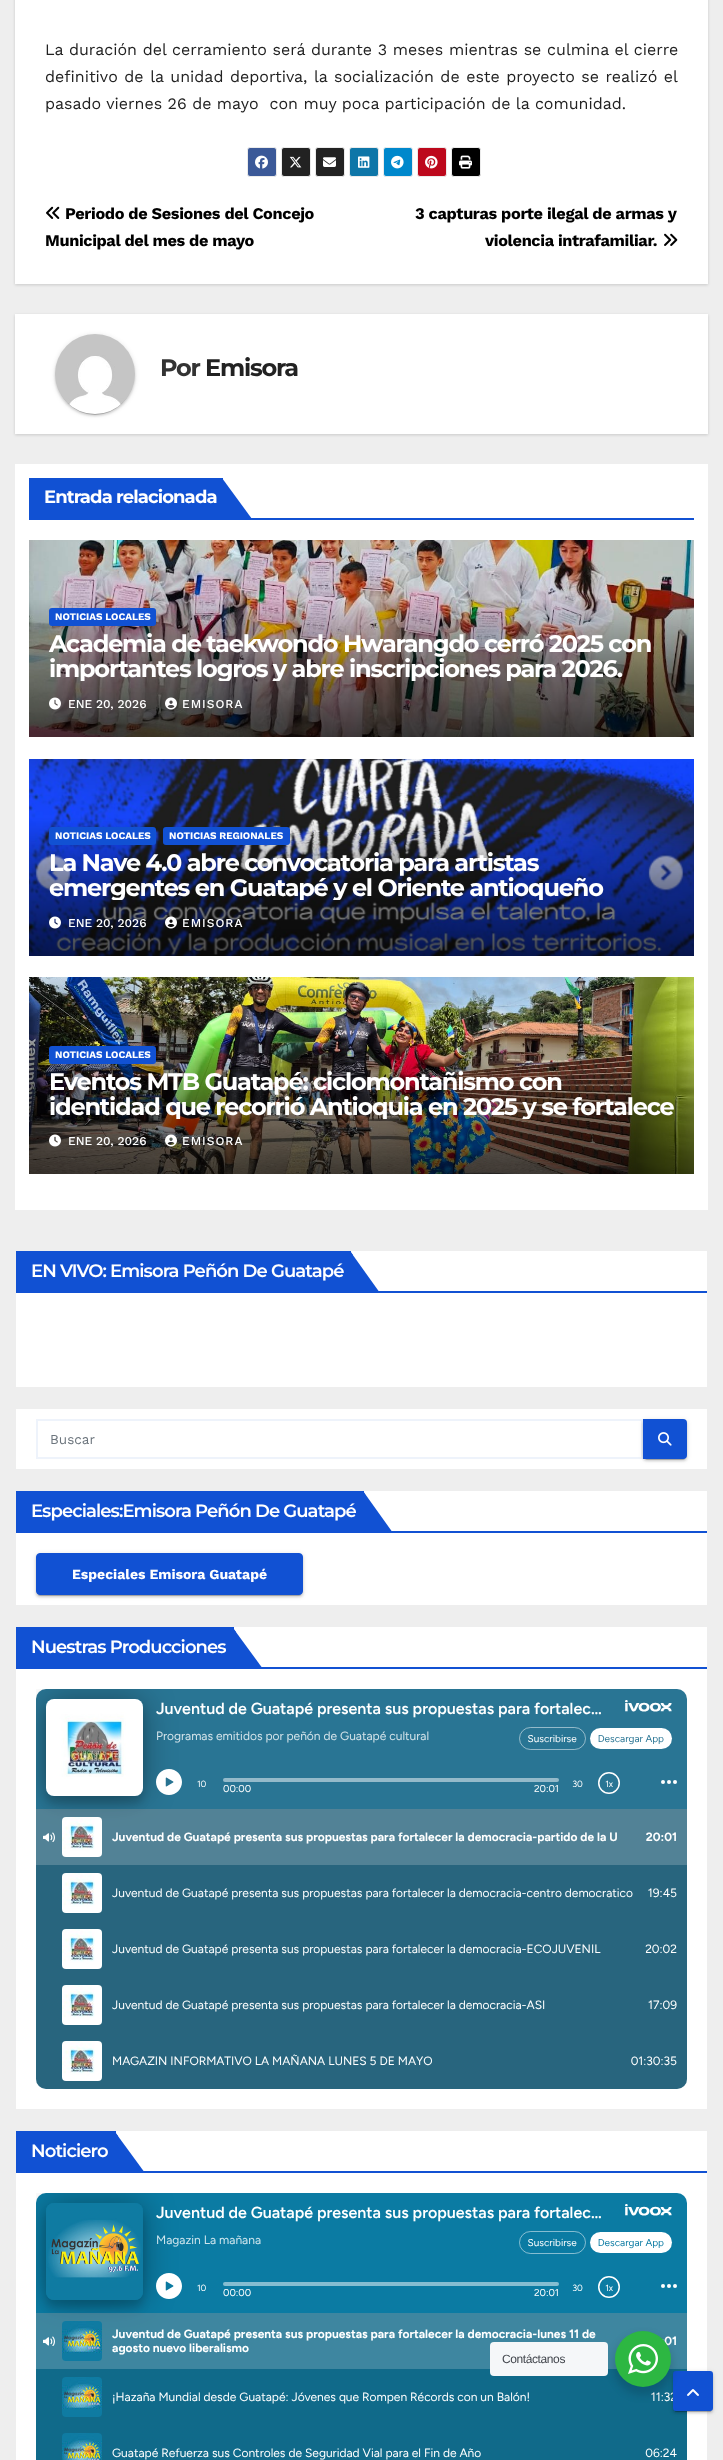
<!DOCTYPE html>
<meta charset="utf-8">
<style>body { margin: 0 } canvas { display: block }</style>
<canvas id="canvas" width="723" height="2460"></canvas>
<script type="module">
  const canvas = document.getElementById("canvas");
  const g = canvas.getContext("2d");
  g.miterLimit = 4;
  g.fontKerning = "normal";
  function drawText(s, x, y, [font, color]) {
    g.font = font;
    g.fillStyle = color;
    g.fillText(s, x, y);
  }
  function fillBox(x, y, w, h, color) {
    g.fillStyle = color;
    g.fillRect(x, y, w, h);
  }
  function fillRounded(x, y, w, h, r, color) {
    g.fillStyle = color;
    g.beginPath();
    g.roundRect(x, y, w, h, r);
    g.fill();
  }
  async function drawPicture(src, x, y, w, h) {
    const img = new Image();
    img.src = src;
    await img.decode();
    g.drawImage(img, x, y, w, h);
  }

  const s1 = ["16px Work Sans", "#222222"];
  const s2 = ["bold 16.3px Work Sans", "#000000"];
  const s3 = ["bold 24px Montserrat", "#333333"];
  const s4 = ["bold 24px Montserrat", "#222222"];
  const s5 = ["bold 18px Montserrat", "#FFFFFF"];
  const s6 = ["bold 10px Work Sans", "#FFFFFF"];
  const s7 = ["bold 24px Montserrat", "#FFFFFF"];
  const s8 = ["500 12px Work Sans", "#FFFFFF"];
  const s9 = ["600 18px Montserrat", "#FFFFFF"];
  const s10 = ["13.5px Work Sans", "#6C757D"];
  const s11 = ["bold 14px Work Sans", "#FFFFFF"];
  const s12 = ["12px Liberation Sans", "#43474E"];

  fillBox(0, 0, 723, 2460, "#EEEEEE");
  g.fillStyle = "rgba(0, 0, 0, 0.15)";
  g.filter = "blur(1.5px)";
  g.beginPath();
  g.rect(15, -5, 693, 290);
  g.fill();
  g.filter = "none";
  fillBox(15, 0, 693, 284, "#FFFFFF");
  g.wordSpacing = "0.25px";
  drawText("La duración del cerramiento será durante 3 meses mientras se culmina el cierre", 45, 55, s1);
  g.wordSpacing = "1.1px";
  drawText("definitivo de la unidad deportiva, la socialización de este proyecto se realizó el", 45, 82, s1);
  g.wordSpacing = "0px";
  drawText("pasado viernes 26 de mayo  con muy poca participación de la comunidad.", 45, 109, s1);
  g.fillStyle = "#3B5998";
  g.beginPath();
  g.roundRect(247.5, 147.5, 29, 29, 2.5);
  g.fill();
  g.strokeStyle = "#EBEBEB";
  g.stroke();
  await drawPicture("pic1.png", 255, 155, 13, 14);
  g.fillStyle = "#222222";
  g.beginPath();
  g.roundRect(281.5, 147.5, 29, 29, 2.5);
  g.fill();
  g.stroke();
  await drawPicture("pic2.png", 289, 156, 13, 12);
  g.beginPath();
  g.roundRect(315.5, 147.5, 29, 29, 2.5);
  g.fill();
  g.stroke();
  await drawPicture("pic3.png", 323, 157, 13, 10);
  g.fillStyle = "#0E76A8";
  g.beginPath();
  g.roundRect(349.5, 147.5, 29, 29, 2.5);
  g.fill();
  g.stroke();
  await drawPicture("pic4.png", 358, 156, 12, 12);
  g.fillStyle = "#0088CC";
  g.beginPath();
  g.roundRect(383.5, 147.5, 29, 29, 2.5);
  g.fill();
  g.stroke();
  await drawPicture("pic5.png", 391, 155, 13, 14);
  g.fillStyle = "#BD081C";
  g.beginPath();
  g.roundRect(417.5, 147.5, 29, 29, 2.5);
  g.fill();
  g.stroke();
  await drawPicture("pic6.png", 425, 155, 13, 14);
  g.fillStyle = "#000000";
  g.beginPath();
  g.roundRect(451.5, 147.5, 29, 29, 2.5);
  g.fill();
  g.stroke();
  await drawPicture("pic7.png", 459, 155, 13, 14);
  await drawPicture("pic8.png", 46, 206, 14, 13);
  g.letterSpacing = "-0.35px";
  drawText("Periodo de Sesiones del Concejo", 65, 219, s2);
  drawText("Municipal del mes de mayo", 45, 246, s2);
  drawText("3 capturas porte ilegal de armas y", 415, 219, s2);
  drawText("violencia intrafamiliar.", 485, 246, s2);
  await drawPicture("pic9.png", 664, 233, 14, 13);
  g.fillStyle = "rgba(0, 0, 0, 0.15)";
  g.filter = "blur(1.5px)";
  g.beginPath();
  g.rect(15, 315, 693, 120);
  g.fill();
  g.filter = "none";
  fillBox(15, 314, 693, 120, "#FFFFFF");
  g.fillStyle = "rgba(0, 0, 0, 0.12)";
  g.filter = "blur(2.5px)";
  g.beginPath();
  g.roundRect(55, 335, 80, 80, 40);
  g.fill();
  g.filter = "none";
  g.fillStyle = "rgba(0, 0, 0, 0.2)";
  g.filter = "blur(0.5px)";
  g.beginPath();
  g.roundRect(57, 339, 76, 76, 38);
  g.fill();
  g.filter = "none";
  g.fillStyle = "rgba(0, 0, 0, 0.14)";
  g.filter = "blur(1px)";
  g.beginPath();
  g.roundRect(55, 336, 80, 80, 40);
  g.fill();
  g.filter = "none";
  await drawPicture("pic10.png", 55, 334, 80, 80);
  g.letterSpacing = "-1.2px";
  drawText("Por", 160, 376, s3);
  drawText("Emisora", 205, 376, s4);
  fillBox(15, 464, 693, 746, "#FFFFFF");
  fillBox(29, 518, 665, 2, "#1151D3");
  fillBox(29, 478, 194, 40, "#1151D3");
  g.letterSpacing = "-0.9px";
  drawText("Entrada relacionada", 44, 503, s5);
  g.fillStyle = "#1151D3";
  g.beginPath();
  g.moveTo(222, 478);
  g.lineTo(222, 519);
  g.lineTo(252, 519);
  g.closePath();
  g.fill();
  await drawPicture("pic11.png", 29, 540, 665, 197);
  fillRounded(49, 608, 107, 18, 3, "#1151D3");
  g.letterSpacing = "0px";
  drawText("NOTICIAS LOCALES", 55, 620, s6);
  g.letterSpacing = "-1.2px";
  drawText("Academia de taekwondo Hwarangdo cerró 2025 con", 49, 652, s7);
  g.save();
  g.beginPath();
  g.rect(49, 631, 625, 50);
  g.clip();
  drawText("importantes logros y abre inscripciones para 2026.", 49, 677, s7);
  g.restore();
  await drawPicture("pic12.png", 49, 697, 12, 13);
  g.letterSpacing = "0px";
  drawText("ENE 20, 2026", 68, 708, s8);
  await drawPicture("pic13.png", 165, 697, 12, 13);
  g.letterSpacing = "1px";
  drawText("EMISORA", 182, 708, s8);
  await drawPicture("pic14.png", 29, 759, 665, 197);
  fillRounded(49, 827, 107, 18, 3, "#1151D3");
  g.letterSpacing = "0px";
  drawText("NOTICIAS LOCALES", 55, 839, s6);
  fillRounded(163, 827, 127, 18, 3, "#1151D3");
  drawText("NOTICIAS REGIONALES", 169, 839, s6);
  g.letterSpacing = "-1.2px";
  drawText("La Nave 4.0 abre convocatoria para artistas", 49, 871, s7);
  g.save();
  g.beginPath();
  g.rect(49, 850, 625, 50);
  g.clip();
  drawText("emergentes en Guatapé y el Oriente antioqueño", 49, 896, s7);
  g.restore();
  await drawPicture("pic15.png", 49, 916, 12, 13);
  g.letterSpacing = "0px";
  drawText("ENE 20, 2026", 68, 927, s8);
  await drawPicture("pic16.png", 165, 916, 12, 13);
  g.letterSpacing = "1px";
  drawText("EMISORA", 182, 927, s8);
  await drawPicture("pic17.png", 29, 977, 665, 197);
  fillRounded(49, 1046, 107, 18, 3, "#1151D3");
  g.letterSpacing = "0px";
  drawText("NOTICIAS LOCALES", 55, 1058, s6);
  g.letterSpacing = "-1.2px";
  drawText("Eventos MTB Guatapé: ciclomontañismo con", 49, 1090, s7);
  g.save();
  g.beginPath();
  g.rect(49, 1069, 625, 50);
  g.clip();
  drawText("identidad que recorrió Antioquia en 2025 y se fortalece", 49, 1115, s7);
  g.restore();
  await drawPicture("pic18.png", 49, 1134, 12, 13);
  g.letterSpacing = "0px";
  drawText("ENE 20, 2026", 68, 1145, s8);
  await drawPicture("pic19.png", 165, 1134, 12, 13);
  g.letterSpacing = "1px";
  drawText("EMISORA", 182, 1145, s8);
  fillBox(16, 1251, 691, 136, "#FFFFFF");
  fillBox(16, 1291, 691, 2, "#1151D3");
  fillBox(16, 1251, 335, 40, "#1151D3");
  g.letterSpacing = "-0.9px";
  drawText("EN VIVO: Emisora Peñón De Guatapé", 31, 1277, s9);
  g.fillStyle = "#1151D3";
  g.beginPath();
  g.moveTo(350, 1251);
  g.lineTo(380, 1293);
  g.lineTo(350, 1293);
  g.closePath();
  g.fill();
  g.beginPath();
  g.moveTo(353, 1255);
  g.lineTo(353, 1290);
  g.lineTo(350, 1293);
  g.lineTo(350, 1251);
  g.closePath();
  g.fill();
  fillBox(16, 1409, 691, 60, "#FFFFFF");
  g.strokeStyle = "#EEF3FB";
  g.lineWidth = 2;
  g.strokeRect(37, 1420, 605, 38);
  g.letterSpacing = "0px";
  drawText("Buscar", 50, 1444, s10);
  g.fillStyle = "rgba(0, 0, 0, 0.12)";
  g.filter = "blur(2.5px)";
  g.beginPath();
  g.roundRect(643, 1420, 44, 40, 4);
  g.fill();
  g.filter = "none";
  g.fillStyle = "rgba(0, 0, 0, 0.2)";
  g.filter = "blur(0.5px)";
  g.beginPath();
  g.roundRect(645, 1424, 40, 36, 2);
  g.fill();
  g.filter = "none";
  g.fillStyle = "rgba(0, 0, 0, 0.14)";
  g.filter = "blur(1px)";
  g.beginPath();
  g.roundRect(643, 1421, 44, 40, 4);
  g.fill();
  g.filter = "none";
  g.fillStyle = "#1151D3";
  g.beginPath();
  g.roundRect(643, 1419, 44, 40, [0, 4, 4, 0]);
  g.fill();
  await drawPicture("pic20.png", 658, 1432, 14, 14);
  fillBox(16, 1491, 691, 114, "#FFFFFF");
  fillBox(16, 1531, 691, 2, "#1151D3");
  fillBox(16, 1491, 348, 40, "#1151D3");
  g.letterSpacing = "-0.9px";
  drawText("Especiales:Emisora Peñón De Guatapé", 31, 1517, s9);
  g.fillStyle = "#1151D3";
  g.beginPath();
  g.moveTo(393, 1533);
  g.lineTo(363, 1533);
  g.lineTo(363, 1491);
  g.closePath();
  g.fill();
  g.beginPath();
  g.moveTo(363, 1533);
  g.lineTo(366, 1530);
  g.lineTo(366, 1496);
  g.lineTo(363, 1491);
  g.closePath();
  g.fill();
  g.fillStyle = "rgba(0, 0, 0, 0.12)";
  g.filter = "blur(2.5px)";
  g.beginPath();
  g.roundRect(36, 1554, 267, 42, 4);
  g.fill();
  g.filter = "none";
  g.fillStyle = "rgba(0, 0, 0, 0.2)";
  g.filter = "blur(0.5px)";
  g.beginPath();
  g.roundRect(38, 1558, 263, 38, 2);
  g.fill();
  g.filter = "none";
  g.fillStyle = "rgba(0, 0, 0, 0.14)";
  g.filter = "blur(1px)";
  g.beginPath();
  g.roundRect(36, 1555, 267, 42, 4);
  g.fill();
  g.filter = "none";
  g.fillStyle = "#1151D3";
  g.beginPath();
  g.roundRect(36.5, 1553.5, 266, 41, 3.5);
  g.fill();
  g.strokeStyle = "#1151D3";
  g.lineWidth = 1;
  g.stroke();
  g.letterSpacing = "0px";
  drawText("Especiales Emisora Guatapé", 72, 1579, s11);
  fillBox(16, 1627, 691, 482, "#FFFFFF");
  fillBox(16, 1667, 691, 2, "#1151D3");
  fillBox(16, 1627, 218, 40, "#1151D3");
  g.letterSpacing = "-0.9px";
  drawText("Nuestras Producciones", 31, 1653, s9);
  g.fillStyle = "#1151D3";
  g.beginPath();
  g.moveTo(263, 1669);
  g.lineTo(233, 1669);
  g.lineTo(233, 1628);
  g.closePath();
  g.fill();
  g.beginPath();
  g.moveTo(233, 1669);
  g.lineTo(236, 1666);
  g.lineTo(236, 1632);
  g.lineTo(233, 1628);
  g.closePath();
  g.fill();
  await drawPicture("pic21.png", 36, 1689, 651, 400);
  fillBox(16, 2131, 691, 329, "#FFFFFF");
  fillBox(16, 2171, 691, 2, "#1151D3");
  fillBox(16, 2131, 100, 40, "#1151D3");
  drawText("Noticiero", 31, 2157, s9);
  g.fillStyle = "#1151D3";
  g.beginPath();
  g.moveTo(145, 2173);
  g.lineTo(115, 2173);
  g.lineTo(115, 2132);
  g.closePath();
  g.fill();
  g.beginPath();
  g.moveTo(115, 2173);
  g.lineTo(118, 2170);
  g.lineTo(118, 2136);
  g.lineTo(115, 2132);
  g.closePath();
  g.fill();
  await drawPicture("pic22.png", 36, 2193, 651, 267);
  g.fillStyle = "rgba(0, 0, 0, 0.12)";
  g.filter = "blur(2.5px)";
  g.beginPath();
  g.roundRect(673, 2372, 40, 40, 3);
  g.fill();
  g.filter = "none";
  g.fillStyle = "rgba(0, 0, 0, 0.2)";
  g.filter = "blur(0.5px)";
  g.beginPath();
  g.roundRect(675, 2376, 36, 36, 1);
  g.fill();
  g.filter = "none";
  g.fillStyle = "rgba(0, 0, 0, 0.14)";
  g.filter = "blur(1px)";
  g.beginPath();
  g.roundRect(673, 2373, 40, 40, 3);
  g.fill();
  g.filter = "none";
  g.fillStyle = "#1151D3";
  g.beginPath();
  g.roundRect(674, 2372, 38, 38, 2);
  g.fill();
  g.lineWidth = 2;
  g.stroke();
  g.fillStyle = "rgba(0, 0, 0, 0.14)";
  g.filter = "blur(4px)";
  g.beginPath();
  g.roundRect(613, 2335, 60, 60, 30);
  g.fill();
  g.filter = "none";
  fillRounded(490, 2342, 118, 34, 4, "#F5F7F9");
  g.letterSpacing = "-0.4px";
  drawText("Contáctanos", 502, 2363, s12);
  g.fillStyle = "#2DB742";
  g.beginPath();
  g.arc(643, 2359, 28, 0, Math.PI * 2);
  g.fill();
  await drawPicture("pic23.png", 628, 2344, 30, 30);
  await drawPicture("pic24.png", 687, 2389, 12, 7);
</script>
